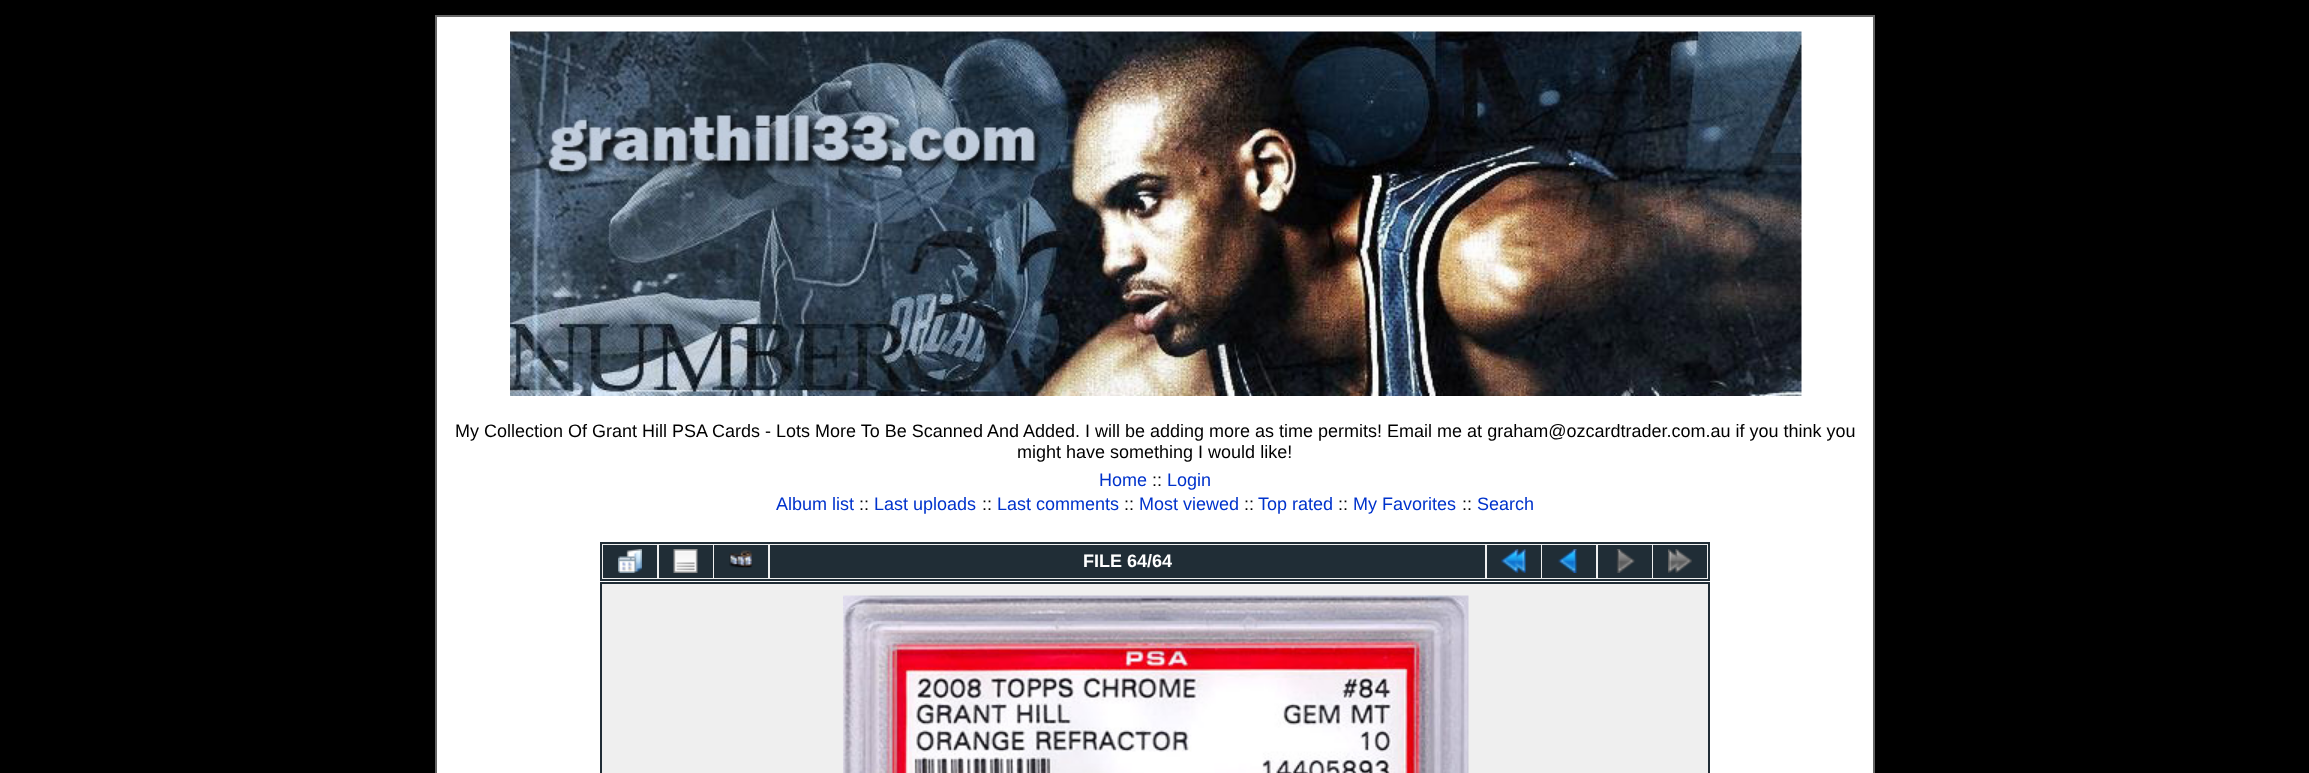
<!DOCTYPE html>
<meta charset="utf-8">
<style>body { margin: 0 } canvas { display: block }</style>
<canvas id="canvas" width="2309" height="773"></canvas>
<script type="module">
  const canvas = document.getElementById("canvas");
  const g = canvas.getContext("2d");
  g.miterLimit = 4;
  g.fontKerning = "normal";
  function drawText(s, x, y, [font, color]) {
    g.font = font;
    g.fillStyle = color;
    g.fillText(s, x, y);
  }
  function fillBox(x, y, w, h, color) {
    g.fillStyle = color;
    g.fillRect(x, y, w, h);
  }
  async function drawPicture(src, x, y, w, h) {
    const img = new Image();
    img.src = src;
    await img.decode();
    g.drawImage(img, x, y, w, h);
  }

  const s1 = ["18px Liberation Sans", "#000000"];
  const s2 = ["18px Liberation Sans", "#0033CC"];
  const s3 = ["bold 18px Liberation Sans", "#FFFFFF"];

  fillBox(0, 0, 2309, 773, "#000000");
  g.fillStyle = "#FFFFFF";
  g.beginPath();
  g.rect(436, 16, 1438, 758);
  g.fill();
  g.strokeStyle = "#666666";
  g.lineWidth = 2;
  g.stroke();
  await drawPicture("pic1.png", 510, 31, 1292, 365);
  drawText("My Collection Of Grant Hill PSA Cards - Lots More To Be Scanned And Added. I will be adding more as time permits! Email me at graham@ozcardtrader.com.au if you think you", 455, 437, s1);
  drawText("might have something I would like!", 1017, 458, s1);
  drawText("Home", 1099, 486, s2);
  drawText("::", 1152, 486, s1);
  drawText("Login", 1167, 486, s2);
  drawText("Album list", 776, 510, s2);
  drawText("::", 859, 510, s1);
  drawText("Last uploads", 874, 510, s2);
  drawText("::", 982, 510, s1);
  drawText("Last comments", 997, 510, s2);
  drawText("::", 1124, 510, s1);
  drawText("Most viewed", 1139, 510, s2);
  drawText("::", 1244, 510, s1);
  drawText("Top rated", 1258, 510, s2);
  drawText("::", 1338, 510, s1);
  drawText("My Favorites", 1353, 510, s2);
  drawText("::", 1462, 510, s1);
  drawText("Search", 1477, 510, s2);
  g.fillStyle = "#EFEFEF";
  g.beginPath();
  g.rect(601, 543, 1108, 37);
  g.fill();
  g.strokeStyle = "#202D36";
  g.stroke();
  fillBox(603, 545, 54, 33, "#202D36");
  await drawPicture("pic2.png", 618, 549, 24, 24);
  fillBox(659, 545, 54, 33, "#202D36");
  await drawPicture("pic3.png", 673, 549, 25, 24);
  fillBox(714, 545, 54, 33, "#202D36");
  await drawPicture("pic4.png", 729, 550, 24, 18);
  fillBox(770, 545, 715, 33, "#202D36");
  drawText("FILE 64/64", 1083, 567, s3);
  fillBox(1487, 545, 54, 33, "#202D36");
  await drawPicture("pic5.png", 1501, 549, 25, 24);
  fillBox(1542, 545, 54, 33, "#202D36");
  await drawPicture("pic6.png", 1558, 549, 19, 24);
  fillBox(1598, 545, 54, 33, "#202D36");
  await drawPicture("pic7.png", 1616, 549, 19, 24);
  fillBox(1653, 545, 54, 33, "#202D36");
  await drawPicture("pic8.png", 1668, 549, 24, 24);
  g.fillStyle = "#EFEFEF";
  g.beginPath();
  g.rect(601, 583, 1108, 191);
  g.fill();
  g.stroke();
  await drawPicture("pic9.png", 843, 595, 626, 178);
</script>
